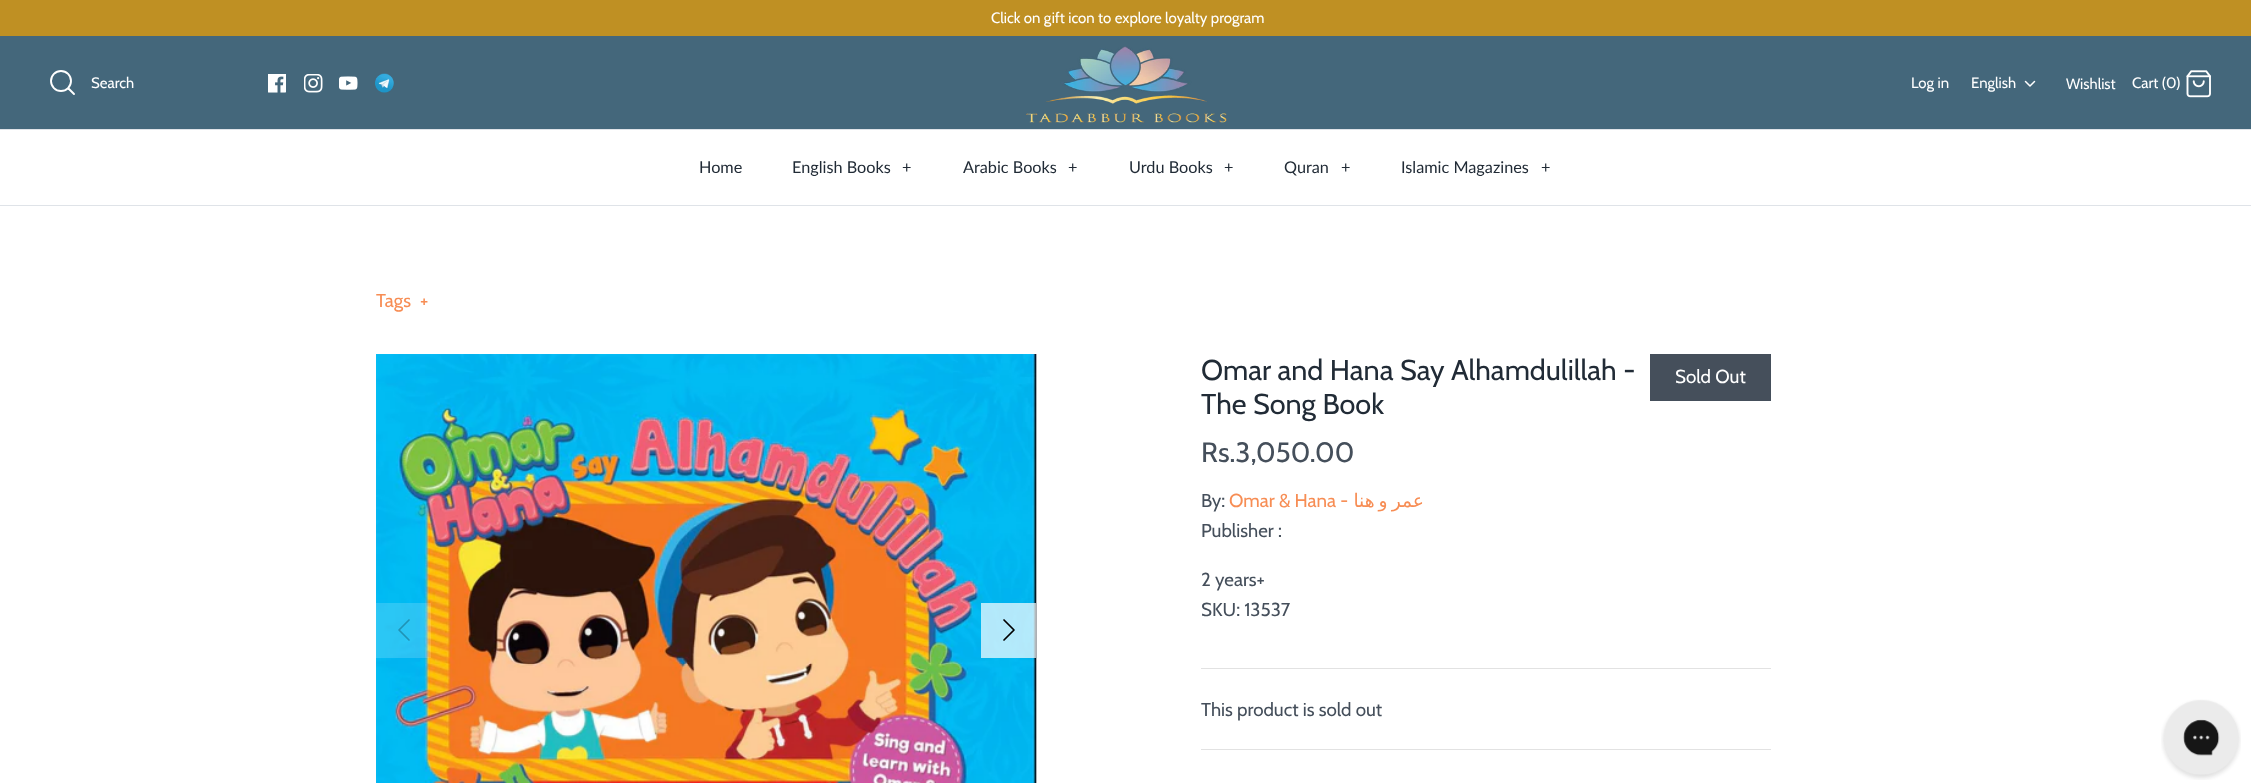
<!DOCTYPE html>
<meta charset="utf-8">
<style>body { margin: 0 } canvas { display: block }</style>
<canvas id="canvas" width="2251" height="783"></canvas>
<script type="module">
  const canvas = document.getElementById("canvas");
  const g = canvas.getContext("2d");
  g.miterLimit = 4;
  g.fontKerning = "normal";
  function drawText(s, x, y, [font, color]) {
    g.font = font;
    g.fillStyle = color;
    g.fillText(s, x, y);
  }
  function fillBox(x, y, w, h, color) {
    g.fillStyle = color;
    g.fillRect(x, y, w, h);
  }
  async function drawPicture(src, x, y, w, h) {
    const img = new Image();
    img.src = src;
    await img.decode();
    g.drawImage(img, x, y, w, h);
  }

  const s1 = ["15px Cabin", "#FFFFFF"];
  const s2 = ["16.25px Lato", "#212B36"];
  const s3 = ["18.75px Cabin", "#F78D54"];
  const s4 = ["28.75px Cabin", "#212B36"];
  const s5 = ["18.75px Cabin", "#FFFFFF"];
  const s6 = ["28px Cabin", "#454F5B"];
  const s7 = ["18.75px Cabin", "#454F5B"];
  const s8 = ["18.75px DejaVu Sans", "#F78D54"];

  fillBox(0, 0, 2251, 783, "#FFFFFF");
  fillBox(0, 0, 2251, 36, "#BF9023");
  drawText("Click on gift icon to explore loyalty program", 991, 23, s1);
  fillBox(0, 36, 2251, 93, "#44677B");
  await drawPicture("pic1.png", 1026, 46, 201, 77);
  g.beginPath();
  g.arc(61, 81, 10, 0, Math.PI * 2);
  g.strokeStyle = "#FFFFFF";
  g.lineWidth = 1.9;
  g.stroke();
  g.beginPath();
  g.moveTo(74, 94);
  g.lineTo(68.5, 88.5);
  g.lineCap = "round";
  g.lineJoin = "round";
  g.stroke();
  drawText("Search", 91, 88, s1);
  await drawPicture("pic2.png", 268, 74, 18, 19);
  await drawPicture("pic3.png", 304, 74, 19, 19);
  await drawPicture("pic4.png", 339, 76, 19, 14);
  await drawPicture("pic5.png", 375, 73, 19, 20);
  drawText("Log in", 1911, 88, s1);
  drawText("English", 1971, 88, s1);
  g.beginPath();
  g.moveTo(2025.5, 81.5);
  g.lineTo(2030, 86);
  g.lineTo(2034.5, 81.5);
  g.lineWidth = 1.5;
  g.stroke();
  drawText("Wishlist", 2066, 89, s1);
  drawText("Cart (0)", 2132, 88, s1);
  await drawPicture("pic6.png", 2186, 70, 25, 28);
  fillBox(0, 205, 2251, 1, "#DFE3E8");
  fillBox(0, 129, 2251, 1, "#DFE3E8");
  drawText("Home", 699, 173, s2);
  drawText("English Books", 792, 173, s2);
  drawText("+", 902, 173, s2);
  drawText("Arabic Books", 963, 173, s2);
  drawText("+", 1068, 173, s2);
  drawText("Urdu Books", 1129, 173, s2);
  drawText("+", 1224, 173, s2);
  drawText("Quran", 1284, 173, s2);
  drawText("+", 1341, 173, s2);
  drawText("Islamic Magazines", 1401, 173, s2);
  drawText("+", 1541, 173, s2);
  drawText("Tags", 376, 307, s3);
  drawText("+", 420, 307, s3);
  await drawPicture("pic7.png", 376, 354, 661, 429);
  fillBox(376, 603, 55, 55, "rgba(255, 255, 255, 0.17)");
  g.beginPath();
  g.moveTo(409, 640);
  g.lineTo(399, 630);
  g.lineTo(409, 620);
  g.strokeStyle = "rgba(0, 0, 0, 0.25)";
  g.lineWidth = 1.7;
  g.stroke();
  fillBox(981, 603, 55, 55, "rgba(255, 255, 255, 0.7)");
  g.beginPath();
  g.moveTo(1004, 640);
  g.lineTo(1014, 630);
  g.lineTo(1004, 620);
  g.strokeStyle = "#000000";
  g.stroke();
  fillBox(1201, 668, 570, 1, "#E2E2E2");
  drawText("Omar and Hana Say Alhamdulillah -", 1201, 380, s4);
  drawText("The Song Book", 1201, 414, s4);
  fillBox(1650, 354, 121, 47, "#454F5B");
  drawText("Sold Out", 1675, 383, s5);
  drawText("Rs.3,050.00", 1201, 462, s6);
  drawText("By:", 1201, 507, s7);
  drawText("Omar & Hana -", 1229, 507, s3);
  g.wordSpacing = "-2px";
  g.direction = "rtl";
  drawText("عمر و ھنا", 1424, 507, s8);
  g.wordSpacing = "0px";
  g.direction = "ltr";
  drawText("Publisher :", 1201, 537, s7);
  drawText("2 years+", 1201, 586, s7);
  drawText("SKU: 13537", 1201, 616, s7);
  fillBox(1201, 749, 570, 1, "#E2E2E2");
  drawText("This product is sold out", 1201, 716, s7);
  await drawPicture("pic8.png", 2161, 699, 80, 81);
</script>
